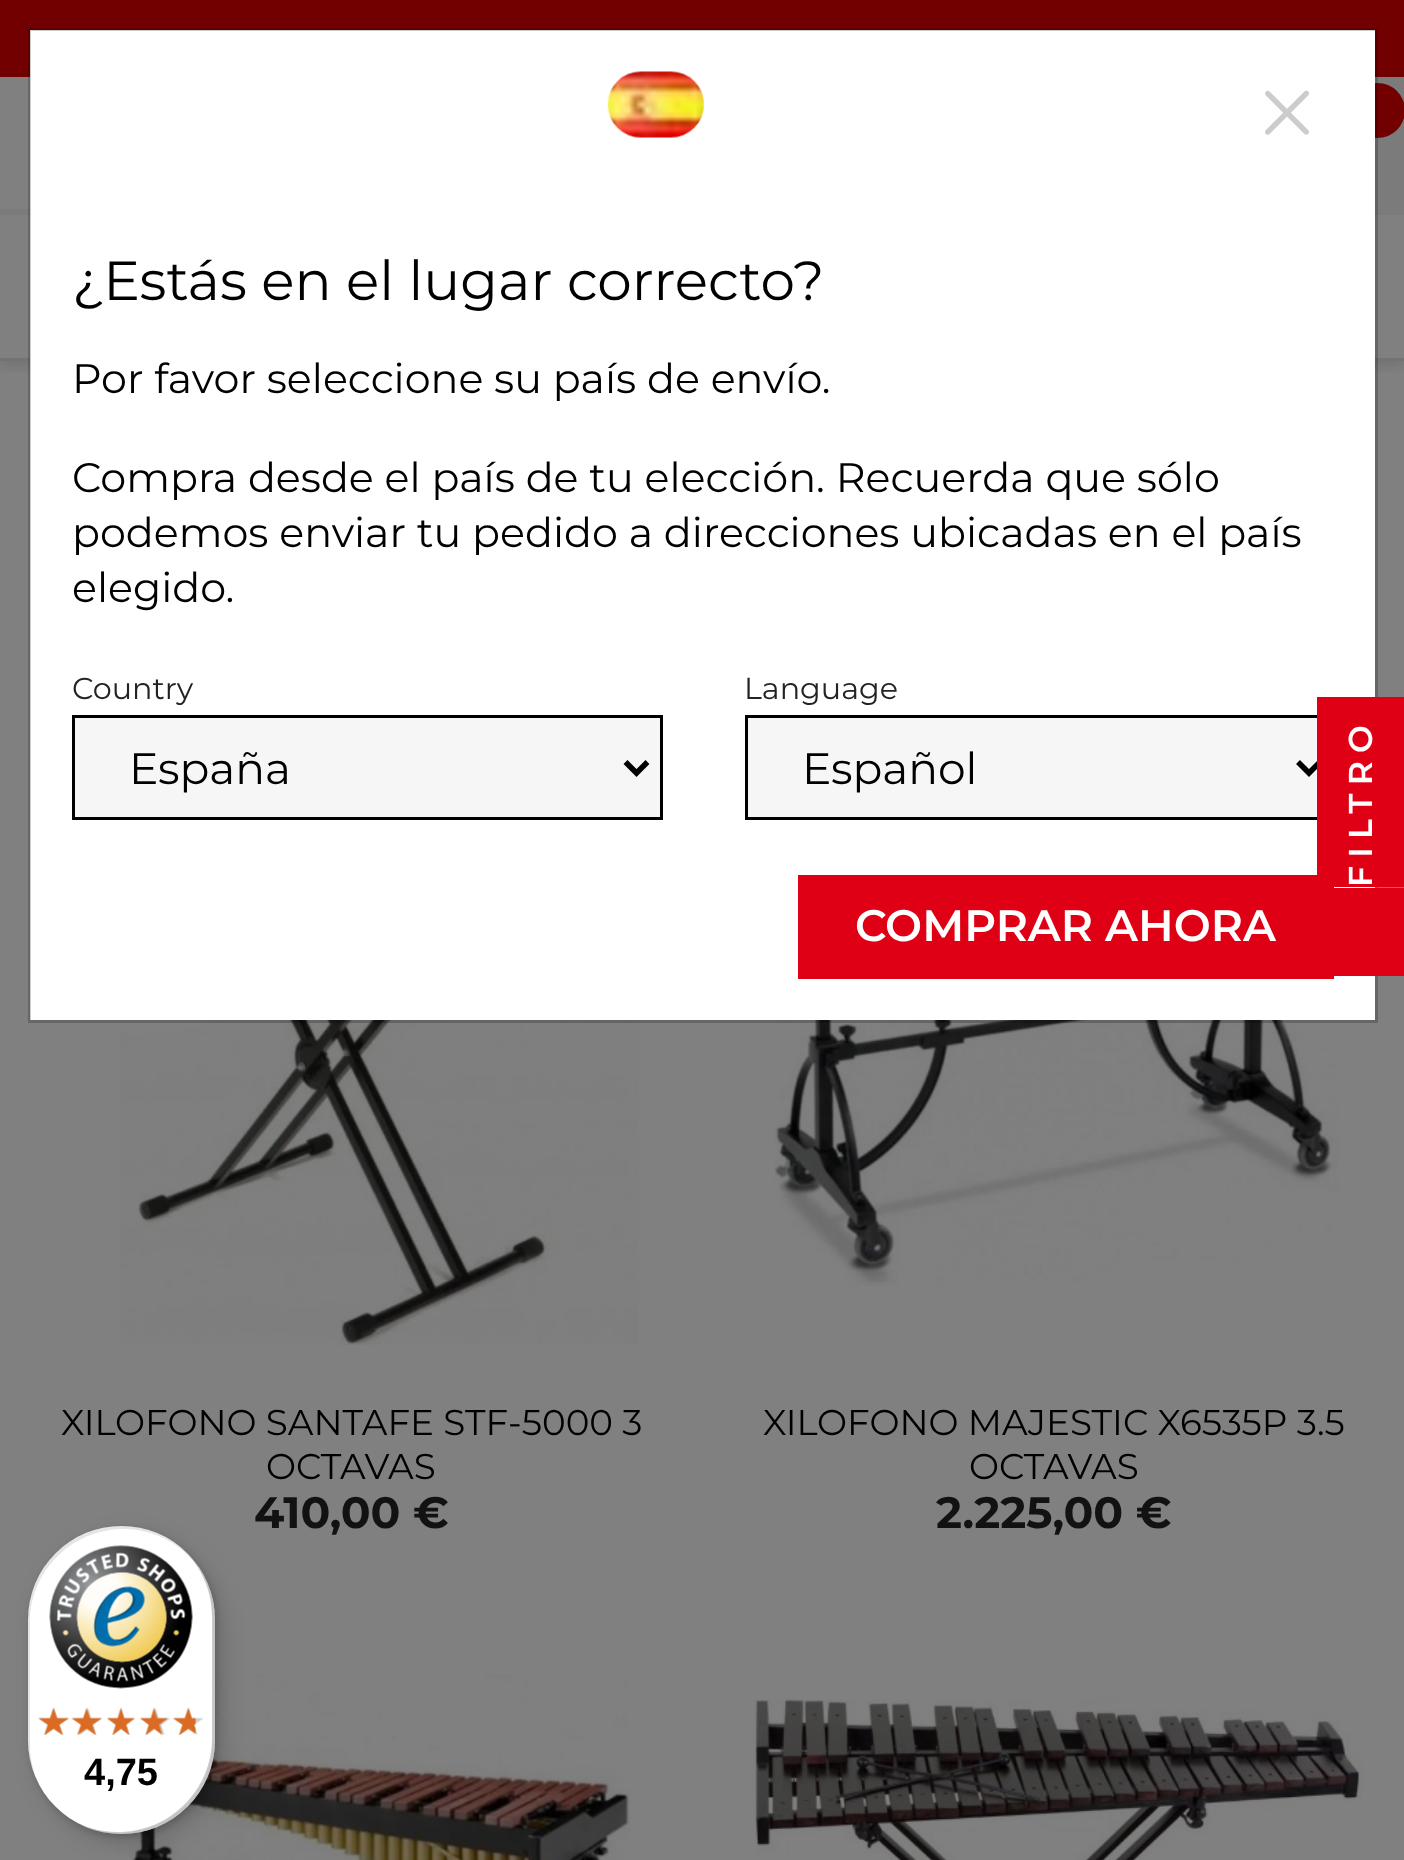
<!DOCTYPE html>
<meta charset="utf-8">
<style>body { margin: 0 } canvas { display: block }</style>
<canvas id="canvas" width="1404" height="1860"></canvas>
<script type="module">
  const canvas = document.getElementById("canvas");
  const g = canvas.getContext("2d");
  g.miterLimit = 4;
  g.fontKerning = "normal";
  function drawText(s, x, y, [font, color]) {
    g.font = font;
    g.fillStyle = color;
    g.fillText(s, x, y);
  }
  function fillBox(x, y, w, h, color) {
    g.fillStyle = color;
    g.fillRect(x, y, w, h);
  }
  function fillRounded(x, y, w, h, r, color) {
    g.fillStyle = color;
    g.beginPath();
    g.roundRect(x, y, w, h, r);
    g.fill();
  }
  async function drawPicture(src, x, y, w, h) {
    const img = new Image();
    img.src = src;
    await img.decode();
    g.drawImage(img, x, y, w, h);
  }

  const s1 = ["55px Montserrat", "#000000"];
  const s2 = ["41.25px Montserrat", "#000000"];
  const s3 = ["30.25px Montserrat", "#232323"];
  const s4 = ["44px Montserrat", "#000000"];
  const s5 = ["600 44px Montserrat", "#FFFFFF"];
  const s6 = ["35.75px Montserrat", "#000000"];
  const s7 = ["bold 44px Montserrat", "#121212"];
  const s8 = ["bold 38px Liberation Sans", "#000000"];

  fillBox(0, 0, 1404, 1860, "#808080");
  g.save();
  g.beginPath();
  g.rect(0, 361, 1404, 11);
  g.clip();
  g.fillStyle = "rgba(0, 0, 0, 0.11)";
  g.filter = "blur(7px)";
  g.beginPath();
  g.rect(0, 6, 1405, 360);
  g.fill();
  g.filter = "none";
  g.restore();
  fillBox(0, 0, 1404, 77, "#720000");
  fillBox(0, 209, 1404, 6, "#7B7B7B");
  fillBox(1375, 77, 29, 132, "#7B7B7B");
  g.fillStyle = "#720000";
  g.beginPath();
  g.arc(1377.5, 110.5, 27.5, 0, Math.PI * 2);
  g.fill();
  fillBox(0, 358, 1404, 3, "#737373");
  fillBox(30, 30, 1345, 990, "#FFFFFF");
  await drawPicture("pic3.png", 120, 1020, 518, 325);
  await drawPicture("pic4.png", 774, 1020, 565, 266);
  g.strokeStyle = "rgba(0, 0, 0, 0.2)";
  g.lineWidth = 3;
  g.strokeRect(29.5, 29.5, 1347, 992);
  await drawPicture("pic1.png", 607, 71, 98, 67);
  await drawPicture("pic2.png", 1265, 90, 44, 45);
  drawText("¿Estás en el lugar correcto?", 72, 300, s1);
  drawText("Por favor seleccione su país de envío.", 72, 393, s2);
  drawText("Compra desde el país de tu elección. Recuerda que sólo", 72, 492, s2);
  drawText("podemos enviar tu pedido a direcciones ubicadas en el país", 72, 547, s2);
  drawText("elegido.", 72, 602, s2);
  drawText("Country", 72, 699, s3);
  g.fillStyle = "#F6F6F6";
  g.beginPath();
  g.rect(73.5, 716.5, 588, 102);
  g.fill();
  g.strokeStyle = "#000000";
  g.stroke();
  g.beginPath();
  g.moveTo(625.5, 762);
  g.lineTo(636.5, 773);
  g.lineTo(647.5, 762);
  g.lineWidth = 5.5;
  g.stroke();
  drawText("España", 129, 784, s4);
  drawText("Language", 744, 699, s3);
  fillBox(748, 718, 569, 99, "#F6F6F6");
  g.lineWidth = 3;
  g.strokeRect(746.5, 716.5, 586, 102);
  g.beginPath();
  g.moveTo(1298, 762);
  g.lineTo(1309, 773);
  g.lineTo(1320, 762);
  g.lineWidth = 5.5;
  g.stroke();
  drawText("Español", 802, 784, s4);
  fillBox(798, 875, 536, 104, "#DF0015");
  drawText("COMPRAR AHORA", 855, 941, s5);
  drawText("XILOFONO SANTAFE STF-5000 3", 61, 1435, s6);
  drawText("OCTAVAS", 266, 1479, s6);
  drawText("410,00 €", 254, 1528, s7);
  drawText("XILOFONO MAJESTIC X6535P 3.5", 763, 1435, s6);
  drawText("OCTAVAS", 969, 1479, s6);
  drawText("2.225,00 €", 936, 1528, s7);
  await drawPicture("pic5.png", 107, 1674, 524, 186);
  await drawPicture("pic6.png", 754, 1699, 610, 161);
  fillBox(1334, 888, 70, 88, "#DF0015");
  fillBox(1317, 697, 87, 190, "#DF0015");
  g.letterSpacing = "8.25px";
  g.font = "600 33px Montserrat";
  g.fillStyle = "#FFFFFF";
  g.save();
  g.translate(1372, 887);
  g.rotate(-90 * Math.PI / 180);
  g.fillText("FILTRO", 0, 0);
  g.restore();
  g.fillStyle = "rgba(0, 0, 0, 0.15)";
  g.filter = "blur(11px)";
  g.beginPath();
  g.roundRect(36, 1535, 187, 308, 93.5);
  g.fill();
  g.filter = "none";
  g.filter = "blur(3px)";
  g.beginPath();
  g.roundRect(30, 1529, 187, 308, 93.5);
  g.fill();
  g.filter = "none";
  fillRounded(28, 1526, 187, 308, 93.5, "#FFFFFF");
  g.fillStyle = "rgba(0, 0, 0, 0.1)";
  g.beginPath();
  g.moveTo(124, 1529);
  g.bezierCurveTo(155, 1529, 183, 1545, 200, 1569);
  g.bezierCurveTo(183, 1543, 154, 1526, 122, 1526);
  g.bezierCurveTo(70, 1526, 28, 1568, 28, 1620);
  g.lineTo(28, 1740);
  g.bezierCurveTo(28, 1760, 34, 1779, 45, 1794);
  g.bezierCurveTo(35, 1780, 30, 1762, 30, 1744);
  g.lineTo(30, 1622);
  g.bezierCurveTo(30, 1571, 72, 1529, 124, 1529);
  g.closePath();
  g.fill();
  g.fillStyle = "rgba(0, 0, 0, 0.2)";
  g.beginPath();
  g.moveTo(68, 1817);
  g.bezierCurveTo(83, 1828, 102, 1834, 122, 1834);
  g.bezierCurveTo(173, 1834, 215, 1792, 215, 1740);
  g.lineTo(215, 1620);
  g.bezierCurveTo(215, 1588, 199, 1559, 175, 1543);
  g.bezierCurveTo(197, 1559, 212, 1586, 212, 1617);
  g.lineTo(212, 1738);
  g.bezierCurveTo(212, 1790, 170, 1832, 118, 1832);
  g.bezierCurveTo(100, 1832, 82, 1827, 68, 1817);
  g.closePath();
  g.fill();
  g.fillStyle = "rgba(50, 50, 50, 0.2)";
  g.beginPath();
  g.moveTo(80, 1824);
  g.bezierCurveTo(92, 1830, 106, 1834, 122, 1834);
  g.bezierCurveTo(173, 1834, 215, 1792, 215, 1740);
  g.lineTo(215, 1620);
  g.bezierCurveTo(215, 1583, 195, 1552, 165, 1537);
  g.bezierCurveTo(194, 1552, 213, 1583, 213, 1618);
  g.lineTo(213, 1739);
  g.bezierCurveTo(213, 1791, 171, 1833, 119, 1833);
  g.bezierCurveTo(105, 1833, 92, 1830, 80, 1824);
  g.closePath();
  g.fill();
  g.fillStyle = "rgba(255, 255, 255, 0.3)";
  g.beginPath();
  g.moveTo(73, 1821);
  g.bezierCurveTo(87, 1829, 104, 1834, 122, 1834);
  g.bezierCurveTo(173, 1834, 215, 1792, 215, 1740);
  g.lineTo(215, 1620);
  g.bezierCurveTo(215, 1583, 194, 1551, 164, 1536);
  g.bezierCurveTo(193, 1552, 213, 1583, 213, 1618);
  g.lineTo(213, 1739);
  g.bezierCurveTo(213, 1791, 171, 1833, 120, 1833);
  g.bezierCurveTo(103, 1833, 87, 1829, 73, 1821);
  g.closePath();
  g.fill();
  await drawPicture("pic7.png", 49, 1545, 144, 144);
  await drawPicture("pic13.png", 38, 1708, 31, 27);
  await drawPicture("pic8.png", 38, 1707, 31, 28);
  await drawPicture("pic14.png", 74, 1708, 28, 27);
  await drawPicture("pic9.png", 71, 1707, 31, 28);
  await drawPicture("pic15.png", 107, 1708, 28, 27);
  await drawPicture("pic10.png", 107, 1707, 28, 28);
  await drawPicture("pic16.png", 140, 1708, 31, 27);
  await drawPicture("pic11.png", 140, 1707, 28, 28);
  await drawPicture("pic17.png", 173, 1708, 31, 27);
  await drawPicture("pic12.png", 173, 1707, 23, 28);
  g.letterSpacing = "0px";
  drawText("4,75", 84, 1785, s8);
</script>
